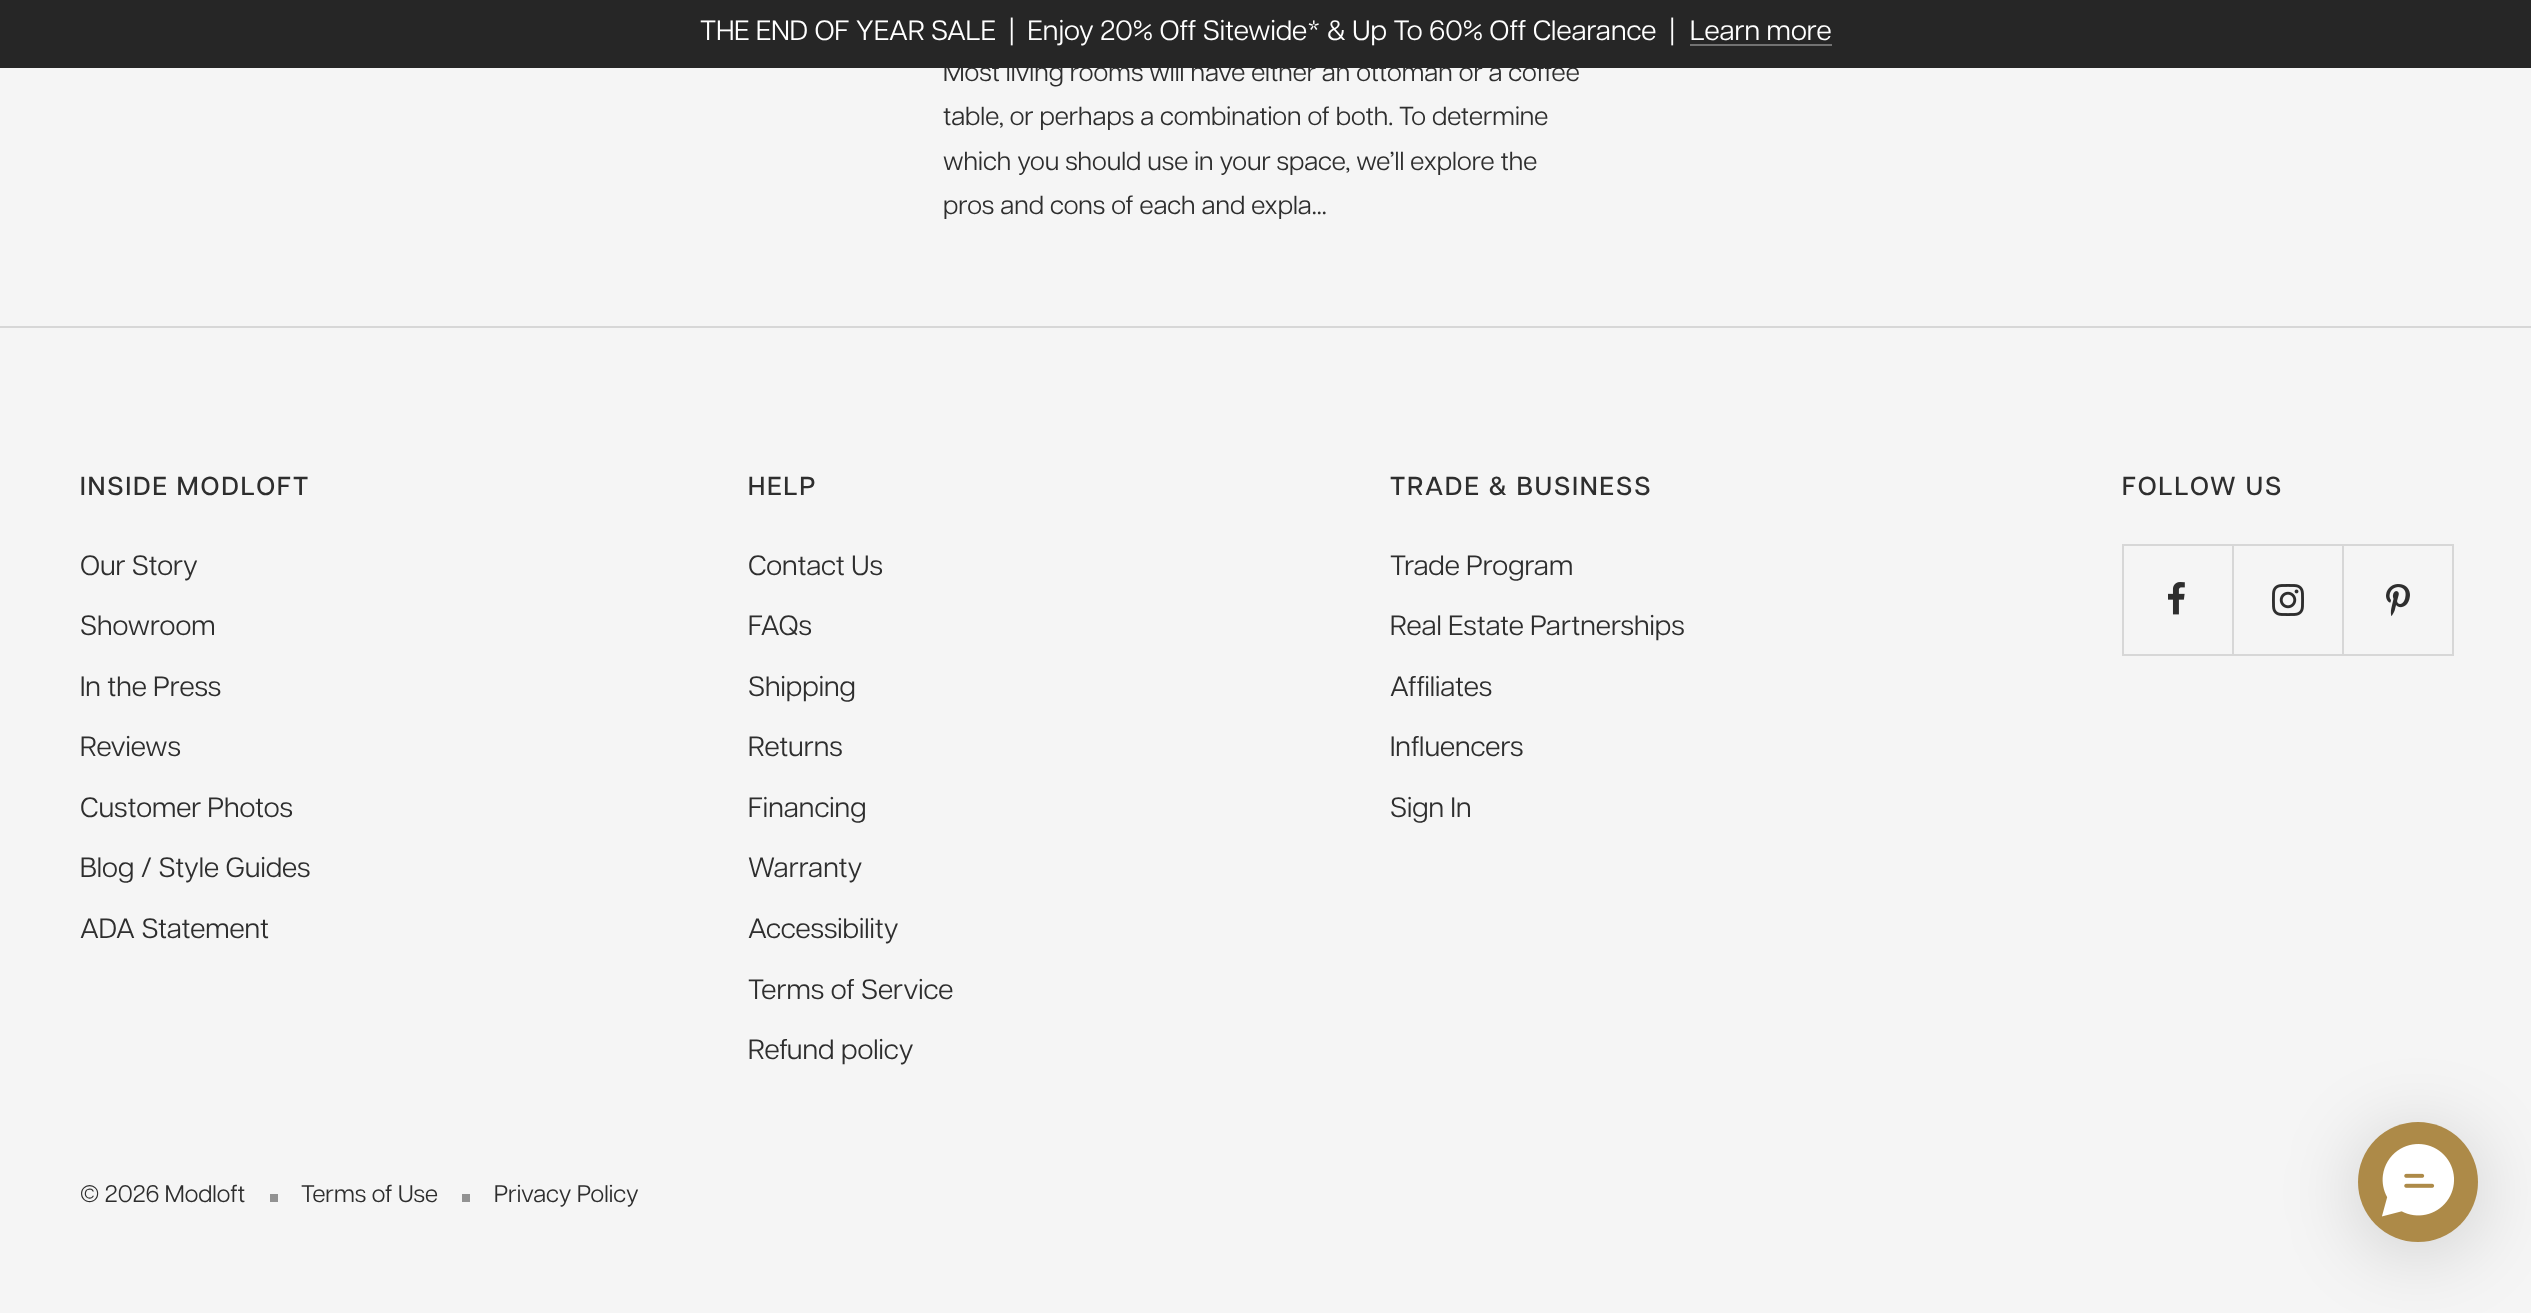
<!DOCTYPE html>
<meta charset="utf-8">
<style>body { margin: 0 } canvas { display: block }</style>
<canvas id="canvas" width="2531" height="1313"></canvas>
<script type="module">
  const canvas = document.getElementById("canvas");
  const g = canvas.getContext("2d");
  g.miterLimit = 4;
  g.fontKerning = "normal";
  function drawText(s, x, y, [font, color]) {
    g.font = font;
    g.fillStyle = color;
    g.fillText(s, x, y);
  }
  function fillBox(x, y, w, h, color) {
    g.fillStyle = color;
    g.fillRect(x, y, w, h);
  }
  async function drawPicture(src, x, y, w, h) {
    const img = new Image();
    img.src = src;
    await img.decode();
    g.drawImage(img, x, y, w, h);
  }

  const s1 = ["26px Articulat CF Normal", "#2E2E2E"];
  const s2 = ["28px Articulat CF Normal", "#FFFFFF"];
  const s3 = ["500 26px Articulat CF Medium", "#2E2E2E"];
  const s4 = ["28px Articulat CF Normal", "#2E2E2E"];
  const s5 = ["24px Articulat CF Normal", "#2E2E2E"];

  fillBox(0, 0, 2531, 1313, "#F5F5F5");
  drawText("Most living rooms will have either an ottoman or a coffee", 943, 81, s1);
  fillBox(0, 0, 2531, 68, "#262626");
  drawText("THE END OF YEAR SALE  |  Enjoy 20% Off Sitewide* & Up To 60% Off Clearance  |", 700, 40, s2);
  drawText("Learn more", 1690, 40, s2);
  fillBox(1690, 44, 142, 2, "#727272");
  drawText("table, or perhaps a combination of both. To determine", 943, 125, s1);
  drawText("which you should use in your space, we’ll explore the", 943, 170, s1);
  drawText("pros and cons of each and expla...", 943, 214, s1);
  fillBox(0, 326, 2531, 2, "#D7D7D7");
  g.letterSpacing = "2px";
  drawText("INSIDE MODLOFT", 80, 495, s3);
  g.letterSpacing = "0px";
  drawText("Our Story", 80, 575, s4);
  drawText("Showroom", 80, 635, s4);
  drawText("In the Press", 80, 696, s4);
  drawText("Reviews", 80, 756, s4);
  drawText("Customer Photos", 80, 817, s4);
  drawText("Blog / Style Guides", 80, 877, s4);
  drawText("ADA Statement", 80, 938, s4);
  g.letterSpacing = "2px";
  drawText("HELP", 748, 495, s3);
  g.letterSpacing = "0px";
  drawText("Contact Us", 748, 575, s4);
  drawText("FAQs", 748, 635, s4);
  drawText("Shipping", 748, 696, s4);
  drawText("Returns", 748, 756, s4);
  drawText("Financing", 748, 817, s4);
  drawText("Warranty", 748, 877, s4);
  drawText("Accessibility", 748, 938, s4);
  drawText("Terms of Service", 748, 999, s4);
  drawText("Refund policy", 748, 1059, s4);
  g.letterSpacing = "2px";
  drawText("TRADE & BUSINESS", 1390, 495, s3);
  g.letterSpacing = "0px";
  drawText("Trade Program", 1390, 575, s4);
  drawText("Real Estate Partnerships", 1390, 635, s4);
  drawText("Affiliates", 1390, 696, s4);
  drawText("Influencers", 1390, 756, s4);
  drawText("Sign In", 1390, 817, s4);
  g.letterSpacing = "2px";
  drawText("FOLLOW US", 2122, 495, s3);
  g.fillStyle = "#D7D7D7";
  g.beginPath();
  g.moveTo(2124, 654);
  g.lineTo(2124, 656);
  g.lineTo(2234, 656);
  g.lineTo(2234, 546);
  g.lineTo(2232, 546);
  g.lineTo(2232, 654);
  g.closePath();
  g.fill();
  fillBox(2122, 654, 2, 2, "#D7D7D7");
  fillBox(2122, 544, 112, 2, "#D7D7D7");
  fillBox(2122, 544, 2, 110, "#D7D7D7");
  await drawPicture("pic1.png", 2168, 582, 17, 33);
  g.beginPath();
  g.moveTo(2234, 654);
  g.lineTo(2234, 656);
  g.lineTo(2344, 656);
  g.lineTo(2344, 546);
  g.lineTo(2342, 546);
  g.lineTo(2342, 654);
  g.closePath();
  g.fill();
  fillBox(2232, 544, 112, 2, "#D7D7D7");
  await drawPicture("pic2.png", 2272, 584, 32, 32);
  g.beginPath();
  g.moveTo(2344, 654);
  g.lineTo(2344, 656);
  g.lineTo(2454, 656);
  g.lineTo(2454, 546);
  g.lineTo(2452, 546);
  g.lineTo(2452, 654);
  g.closePath();
  g.fill();
  fillBox(2342, 544, 112, 2, "#D7D7D7");
  await drawPicture("pic3.png", 2386, 584, 24, 32);
  g.letterSpacing = "0px";
  drawText("© 2026 Modloft", 80, 1202, s5);
  fillBox(270, 1194, 8, 8, "#929292");
  drawText("Terms of Use", 301, 1202, s5);
  fillBox(462, 1194, 8, 8, "#929292");
  drawText("Privacy Policy", 494, 1202, s5);
  g.fillStyle = "rgba(0, 0, 0, 0.16)";
  g.filter = "blur(40px)";
  g.beginPath();
  g.roundRect(2358, 1132, 120, 120, 60);
  g.fill();
  g.filter = "none";
  g.fillStyle = "#AD8A48";
  g.beginPath();
  g.arc(2418, 1182, 60, 0, Math.PI * 2);
  g.fill();
  await drawPicture("pic4.png", 2382, 1144, 73, 73);
</script>
